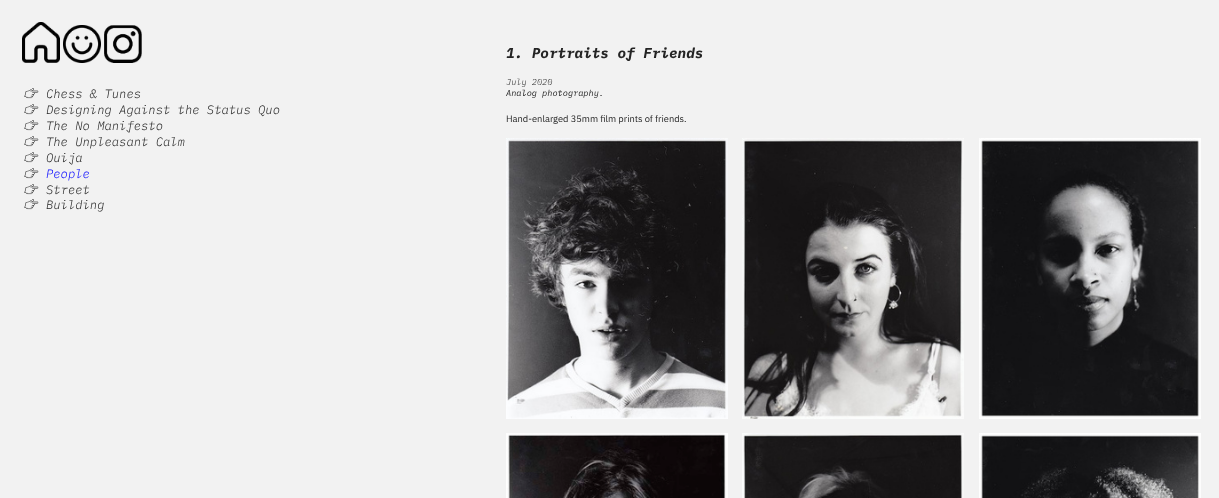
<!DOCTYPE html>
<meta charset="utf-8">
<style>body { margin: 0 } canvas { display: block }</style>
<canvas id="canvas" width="1219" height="498"></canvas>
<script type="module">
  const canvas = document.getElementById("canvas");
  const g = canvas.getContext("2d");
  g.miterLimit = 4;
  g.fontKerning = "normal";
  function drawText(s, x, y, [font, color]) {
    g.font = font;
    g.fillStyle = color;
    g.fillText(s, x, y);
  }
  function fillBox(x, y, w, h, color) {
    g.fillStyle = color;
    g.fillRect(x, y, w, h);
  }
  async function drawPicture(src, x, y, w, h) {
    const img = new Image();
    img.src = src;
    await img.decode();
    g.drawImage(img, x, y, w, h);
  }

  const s1 = ["italic 300 12.2px IBM Plex Mono", "#242424"];
  const s2 = ["italic 300 12.2px IBM Plex Mono", "#0000FF"];
  const s3 = ["italic bold 14.3px IBM Plex Mono", "#242424"];
  const s4 = ["italic 300 8.6px IBM Plex Mono", "#242424"];
  const s5 = ["italic 8.6px IBM Plex Mono", "#242424"];
  const s6 = ["9.3px IBM Plex Sans", "#242424"];

  fillBox(0, 0, 1219, 498, "#F2F2F2");
  await drawPicture("pic1.png", 22, 22, 38, 41);
  await drawPicture("pic2.png", 63, 25, 38, 38);
  await drawPicture("pic3.png", 104, 25, 38, 38);
  await drawPicture("pic4.png", 24, 88, 15, 11);
  drawText("Chess & Tunes", 46, 98, s1);
  await drawPicture("pic4.png", 24, 104, 15, 11);
  drawText("Designing Against the Status Quo", 46, 114, s1);
  await drawPicture("pic4.png", 24, 120, 15, 11);
  drawText("The No Manifesto", 46, 130, s1);
  await drawPicture("pic4.png", 24, 136, 15, 11);
  drawText("The Unpleasant Calm", 46, 146, s1);
  await drawPicture("pic4.png", 24, 152, 15, 11);
  drawText("Ouija", 46, 162, s1);
  await drawPicture("pic4.png", 24, 168, 15, 11);
  drawText("People", 46, 178, s2);
  await drawPicture("pic4.png", 24, 184, 15, 11);
  drawText("Street", 46, 194, s1);
  await drawPicture("pic4.png", 24, 199, 15, 11);
  drawText("Building", 46, 209, s1);
  drawText("1. Portraits of Friends", 506, 58, s3);
  drawText("July 2020", 506, 85, s4);
  drawText("Analog photography.", 506, 96, s5);
  drawText("Hand-enlarged 35mm film prints of friends.", 506, 122, s6);
  await drawPicture("pic5.png", 506, 138, 222, 281);
  await drawPicture("pic6.png", 742, 138, 222, 281);
  await drawPicture("pic7.png", 979, 138, 222, 281);
  await drawPicture("pic8.png", 506, 433, 222, 65);
  await drawPicture("pic9.png", 742, 433, 222, 65);
  await drawPicture("pic10.png", 979, 433, 222, 65);
</script>
